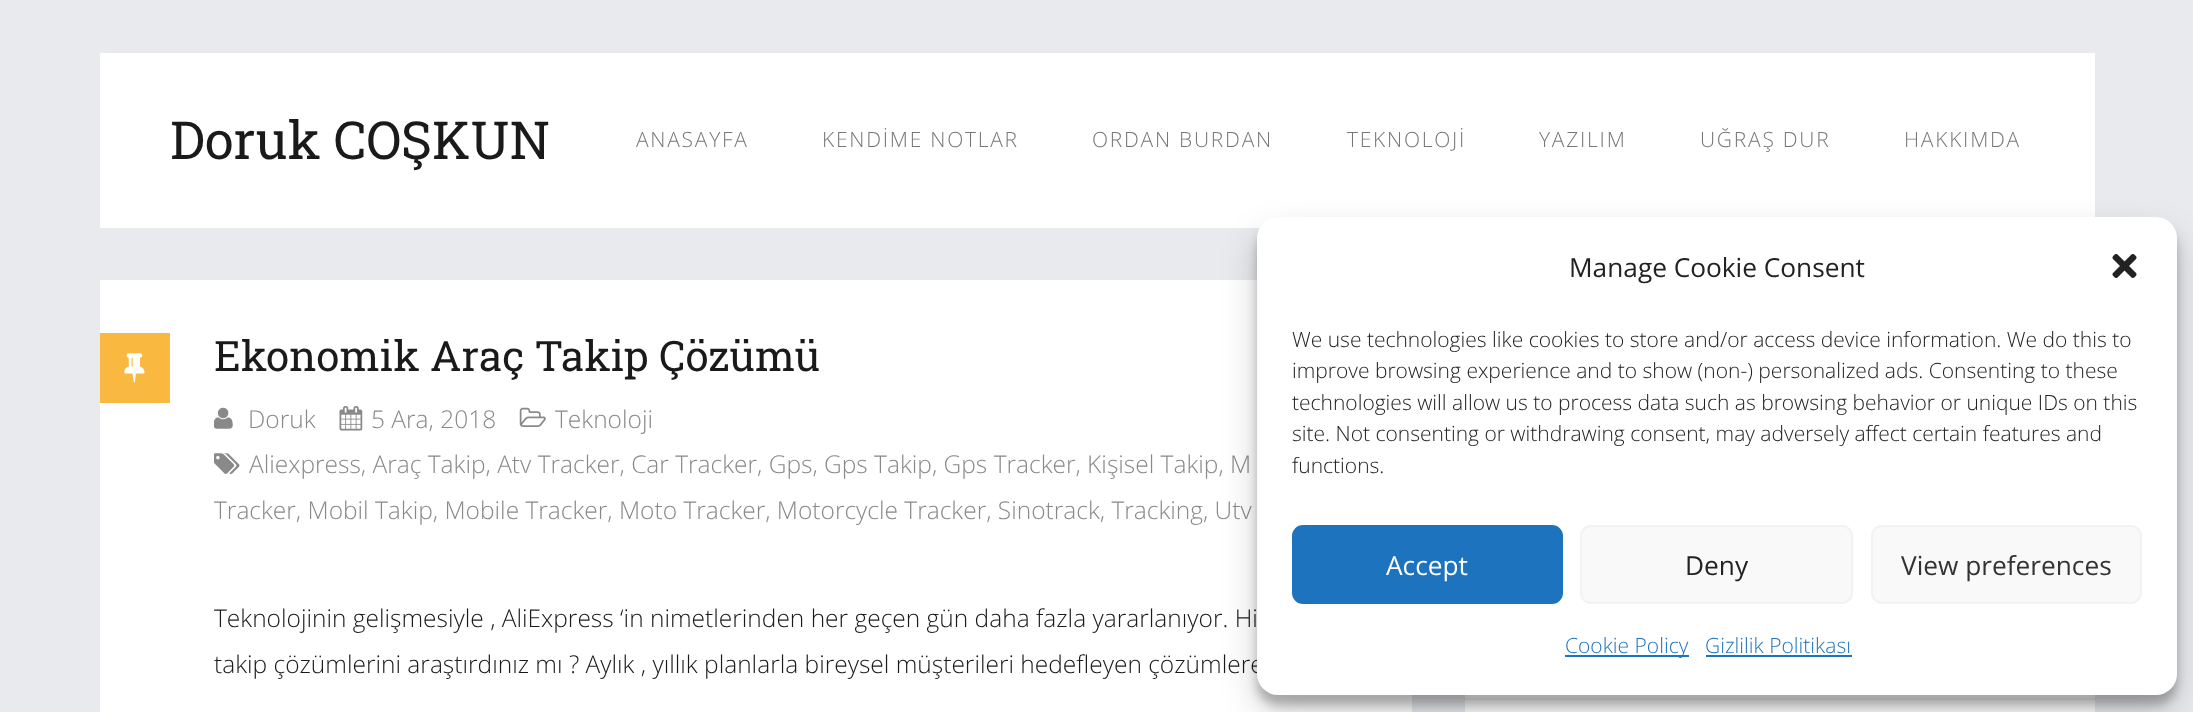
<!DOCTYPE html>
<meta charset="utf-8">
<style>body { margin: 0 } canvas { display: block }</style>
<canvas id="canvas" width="2193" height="712"></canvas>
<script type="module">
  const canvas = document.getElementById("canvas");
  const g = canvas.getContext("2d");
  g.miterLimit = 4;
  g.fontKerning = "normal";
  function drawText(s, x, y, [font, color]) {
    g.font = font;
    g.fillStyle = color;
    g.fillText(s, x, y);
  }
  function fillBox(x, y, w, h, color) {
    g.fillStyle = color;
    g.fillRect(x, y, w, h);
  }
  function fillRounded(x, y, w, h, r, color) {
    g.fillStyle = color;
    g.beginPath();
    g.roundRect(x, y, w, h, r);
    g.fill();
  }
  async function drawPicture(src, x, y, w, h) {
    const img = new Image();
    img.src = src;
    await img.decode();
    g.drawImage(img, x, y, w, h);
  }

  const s1 = ["52.5px Roboto Slab", "#1A1A1A"];
  const s2 = ["300 21px Open Sans", "#777777"];
  const s3 = ["42px Roboto Slab", "#1A1A1A"];
  const s4 = ["300 24.5px Open Sans", "#898989"];
  const s5 = ["300 24.5px Open Sans", "#1A1A1A"];
  const s6 = ["26.25px Open Sans", "#222222"];
  const s7 = ["300 21px Open Sans", "#222222"];
  const s8 = ["26.25px Open Sans", "#FFFFFF"];
  const s9 = ["26.25px Open Sans", "#333333"];
  const s10 = ["300 21px Open Sans", "#1E73BE"];

  fillBox(0, 0, 2193, 712, "#E9EAED");
  fillBox(100, 53, 1995, 175, "#FFFFFF");
  drawText("Doruk COŞKUN", 170, 159, s1);
  g.letterSpacing = "1.75px";
  drawText("ANASAYFA", 636, 147, s2);
  drawText("KENDİME NOTLAR", 822, 147, s2);
  drawText("ORDAN BURDAN", 1092, 147, s2);
  drawText("TEKNOLOJİ", 1347, 147, s2);
  drawText("YAZILIM", 1539, 147, s2);
  drawText("UĞRAŞ DUR", 1700, 147, s2);
  drawText("HAKKIMDA", 1904, 147, s2);
  fillBox(100, 280, 1312, 432, "#FFFFFF");
  fillBox(100, 333, 70, 70, "#F9B840");
  await drawPicture("pic1.png", 124, 353, 21, 30);
  g.letterSpacing = "0px";
  drawText("Ekonomik Araç Takip Çözümü", 214, 371, s3);
  await drawPicture("pic2.png", 214, 407, 19, 22);
  drawText("Doruk", 248, 428, s4);
  await drawPicture("pic3.png", 339, 406, 24, 25);
  drawText("5 Ara, 2018", 371, 428, s4);
  await drawPicture("pic4.png", 519, 407, 27, 20);
  drawText("Teknoloji", 555, 428, s4);
  await drawPicture("pic5.png", 214, 453, 26, 21);
  drawText("Aliexpress, Araç Takip, Atv Tracker, Car Tracker, Gps, Gps Takip, Gps Tracker, Kişisel Takip, M", 249, 473, s4);
  drawText("Tracker, Mobil Takip, Mobile Tracker, Moto Tracker, Motorcycle Tracker, Sinotrack, Tracking, Utv", 214, 519, s4);
  drawText("Teknolojinin gelişmesiyle , AliExpress ‘in nimetlerinden her geçen gün daha fazla yararlanıyor. Hi", 214, 627, s5);
  drawText("takip çözümlerini araştırdınız mı ? Aylık , yıllık planlarla bireysel müşterileri hedefleyen çözümlere", 214, 673, s5);
  fillBox(1465, 695, 630, 17, "#FFFFFF");
  fillBox(1465, 698, 630, 2, "#F4F4F4");
  g.fillStyle = "rgba(0, 0, 0, 0.23)";
  g.filter = "blur(5px)";
  g.beginPath();
  g.roundRect(1257, 228, 920, 477, 21);
  g.fill();
  g.filter = "none";
  g.fillStyle = "rgba(0, 0, 0, 0.19)";
  g.filter = "blur(17.5px)";
  g.beginPath();
  g.roundRect(1257, 235, 920, 477, 21);
  g.fill();
  g.filter = "none";
  fillRounded(1257, 217, 920, 478, 21, "#FFFFFF");
  drawText("Manage Cookie Consent", 1569, 277, s6);
  await drawPicture("pic6.png", 2112, 254, 25, 24);
  drawText("We use technologies like cookies to store and/or access device information. We do this to", 1292, 347, s7);
  drawText("improve browsing experience and to show (non-) personalized ads. Consenting to these", 1292, 378, s7);
  drawText("technologies will allow us to process data such as browsing behavior or unique IDs on this", 1292, 410, s7);
  drawText("site. Not consenting or withdrawing consent, may adversely affect certain features and", 1292, 441, s7);
  drawText("functions.", 1292, 473, s7);
  g.fillStyle = "#1E73BE";
  g.beginPath();
  g.roundRect(1293, 526, 269, 77, 10);
  g.fill();
  g.strokeStyle = "#1E73BE";
  g.lineWidth = 2;
  g.stroke();
  drawText("Accept", 1386, 575, s8);
  g.fillStyle = "#F9F9F9";
  g.beginPath();
  g.roundRect(1581, 526, 271, 77, 10);
  g.fill();
  g.strokeStyle = "#F2F2F2";
  g.stroke();
  drawText("Deny", 1685, 575, s6);
  g.fillStyle = "#F9F9F9";
  g.beginPath();
  g.roundRect(1872, 526, 269, 77, 10);
  g.fill();
  g.stroke();
  drawText("View preferences", 1901, 575, s9);
  fillBox(1565, 655, 124, 2, "#1E73BE");
  drawText("Cookie Policy", 1565, 653, s10);
  drawText("Gizlilik Politikası", 1705, 653, s10);
  fillBox(1706, 655, 146, 2, "#1E73BE");
</script>
